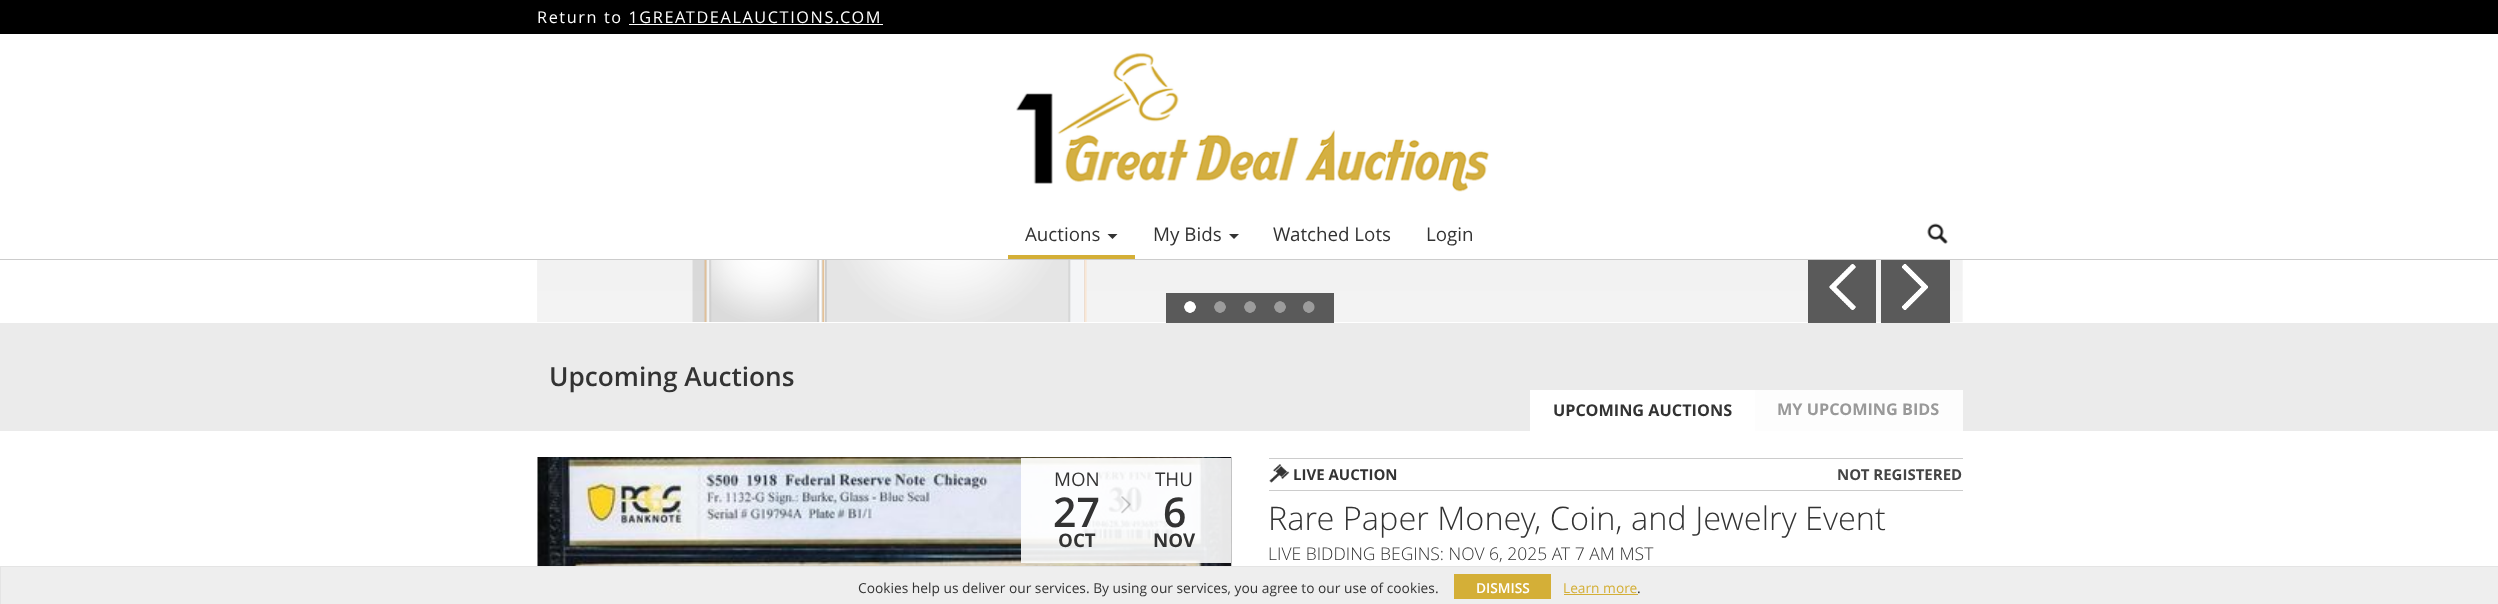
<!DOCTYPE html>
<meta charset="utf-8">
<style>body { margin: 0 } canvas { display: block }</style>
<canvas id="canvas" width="2498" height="604"></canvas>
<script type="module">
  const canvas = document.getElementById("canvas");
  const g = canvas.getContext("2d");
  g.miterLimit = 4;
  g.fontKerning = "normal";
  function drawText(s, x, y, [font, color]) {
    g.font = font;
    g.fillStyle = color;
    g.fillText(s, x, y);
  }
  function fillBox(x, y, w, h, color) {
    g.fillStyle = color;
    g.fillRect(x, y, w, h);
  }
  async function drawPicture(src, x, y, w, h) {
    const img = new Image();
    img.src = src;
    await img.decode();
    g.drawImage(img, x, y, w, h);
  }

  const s1 = ["16.25px Open Sans", "#FFFFFF"];
  const s2 = ["18.75px Open Sans", "#333333"];
  const s3 = ["600 26.25px Open Sans", "#333333"];
  const s4 = ["bold 16.25px Open Sans", "#333333"];
  const s5 = ["bold 16.25px Open Sans", "#999999"];
  const s6 = ["600 41px Open Sans", "#333333"];
  const s7 = ["bold 18.75px Open Sans", "#333333"];
  const s8 = ["bold 15px Open Sans", "#333333"];
  const s9 = ["bold 15px Open Sans", "#454545"];
  const s10 = ["300 32.5px Open Sans", "#333333"];
  const s11 = ["300 17.5px Open Sans", "#333333"];
  const s12 = ["13.75px Open Sans", "#333333"];
  const s13 = ["600 13.75px Open Sans", "#FFFFFF"];
  const s14 = ["13.75px Open Sans", "#D4AF37"];

  fillBox(0, 0, 2498, 604, "#FFFFFF");
  fillBox(0, 0, 2498, 34, "#000000");
  g.letterSpacing = "1.6px";
  drawText("Return to 1GREATDEALAUCTIONS.COM", 537, 23, s1);
  fillBox(629, 24, 254, 1, "#FFFFFF");
  await drawPicture("pic1.png", 1016, 52, 473, 140);
  fillBox(1008, 255, 127, 4, "#D4AF37");
  g.letterSpacing = "0px";
  drawText("Auctions", 1025, 241, s2);
  g.beginPath();
  g.moveTo(1107.5, 234);
  g.lineTo(1117.5, 234);
  g.lineTo(1112.5, 239);
  g.closePath();
  g.fill();
  drawText("My Bids", 1153, 241, s2);
  g.beginPath();
  g.moveTo(1229, 234);
  g.lineTo(1239, 234);
  g.lineTo(1234, 239);
  g.closePath();
  g.fill();
  drawText("Watched Lots", 1273, 241, s2);
  drawText("Login", 1426, 241, s2);
  await drawPicture("pic2.png", 1927, 223, 21, 21);
  fillBox(0, 259, 2498, 1, "#CCCCCC");
  await drawPicture("pic3.png", 537, 260, 1426, 62);
  await drawPicture("pic4.png", 692, 260, 395, 62);
  fillBox(1166, 293, 39, 30, "rgba(51, 51, 51, 0.8)");
  await drawPicture("pic5.png", 1184, 301, 12, 12);
  fillBox(1205, 293, 30, 30, "rgba(51, 51, 51, 0.8)");
  await drawPicture("pic6.png", 1214, 301, 12, 12);
  fillBox(1235, 293, 30, 30, "rgba(51, 51, 51, 0.8)");
  await drawPicture("pic6.png", 1244, 301, 12, 12);
  fillBox(1265, 293, 30, 30, "rgba(51, 51, 51, 0.8)");
  await drawPicture("pic6.png", 1274, 301, 12, 12);
  fillBox(1295, 293, 39, 30, "rgba(51, 51, 51, 0.8)");
  await drawPicture("pic7.png", 1303, 301, 12, 12);
  fillBox(1808, 260, 68, 63, "rgba(51, 51, 51, 0.8)");
  await drawPicture("pic8.png", 1829, 264, 27, 46);
  fillBox(1881, 260, 69, 63, "rgba(51, 51, 51, 0.8)");
  await drawPicture("pic9.png", 1902, 264, 26, 46);
  fillBox(0, 323, 2498, 108, "#EBEBEB");
  drawText("Upcoming Auctions", 549, 386, s3);
  fillBox(1530, 390, 225, 41, "#FFFFFF");
  drawText("UPCOMING AUCTIONS", 1553, 416, s4);
  fillBox(1755, 390, 208, 41, "#FDFDFD");
  drawText("MY UPCOMING BIDS", 1777, 415, s5);
  await drawPicture("pic10.png", 537, 457, 695, 109);
  fillBox(1021, 458, 210, 105, "rgba(255, 255, 255, 0.9)");
  drawText("MON", 1054, 486, s2);
  drawText("27", 1053, 527, s6);
  drawText("OCT", 1058, 547, s7);
  drawText("THU", 1155, 486, s2);
  await drawPicture("pic11.png", 1121, 496, 10, 18);
  drawText("6", 1163, 527, s6);
  drawText("NOV", 1153, 547, s7);
  await drawPicture("pic12.png", 1269, 464, 21, 19);
  fillBox(1269, 458, 694, 1, "#CCCCCC");
  drawText("LIVE AUCTION", 1293, 480, s8);
  drawText("NOT REGISTERED", 1837, 480, s9);
  fillBox(1269, 490, 694, 1, "#CCCCCC");
  drawText("Rare Paper Money, Coin, and Jewelry Event", 1268, 530, s10);
  drawText("LIVE BIDDING BEGINS: NOV 6, 2025 AT 7 AM MST", 1268, 560, s11);
  fillBox(1, 567, 2497, 37, "#EEEEEE");
  fillBox(0, 566, 2498, 1, "#E4E4E4");
  fillBox(0, 566, 1, 38, "#E4E4E4");
  drawText("Cookies help us deliver our services. By using our services, you agree to our use of cookies.", 858, 593, s12);
  fillBox(1454, 574, 97, 25, "#D4AF37");
  drawText("DISMISS", 1476, 593, s13);
  drawText("Learn more", 1563, 593, s14);
  fillBox(1564, 594, 74, 1, "#D4AF37");
  drawText(".", 1637, 593, s12);
</script>
